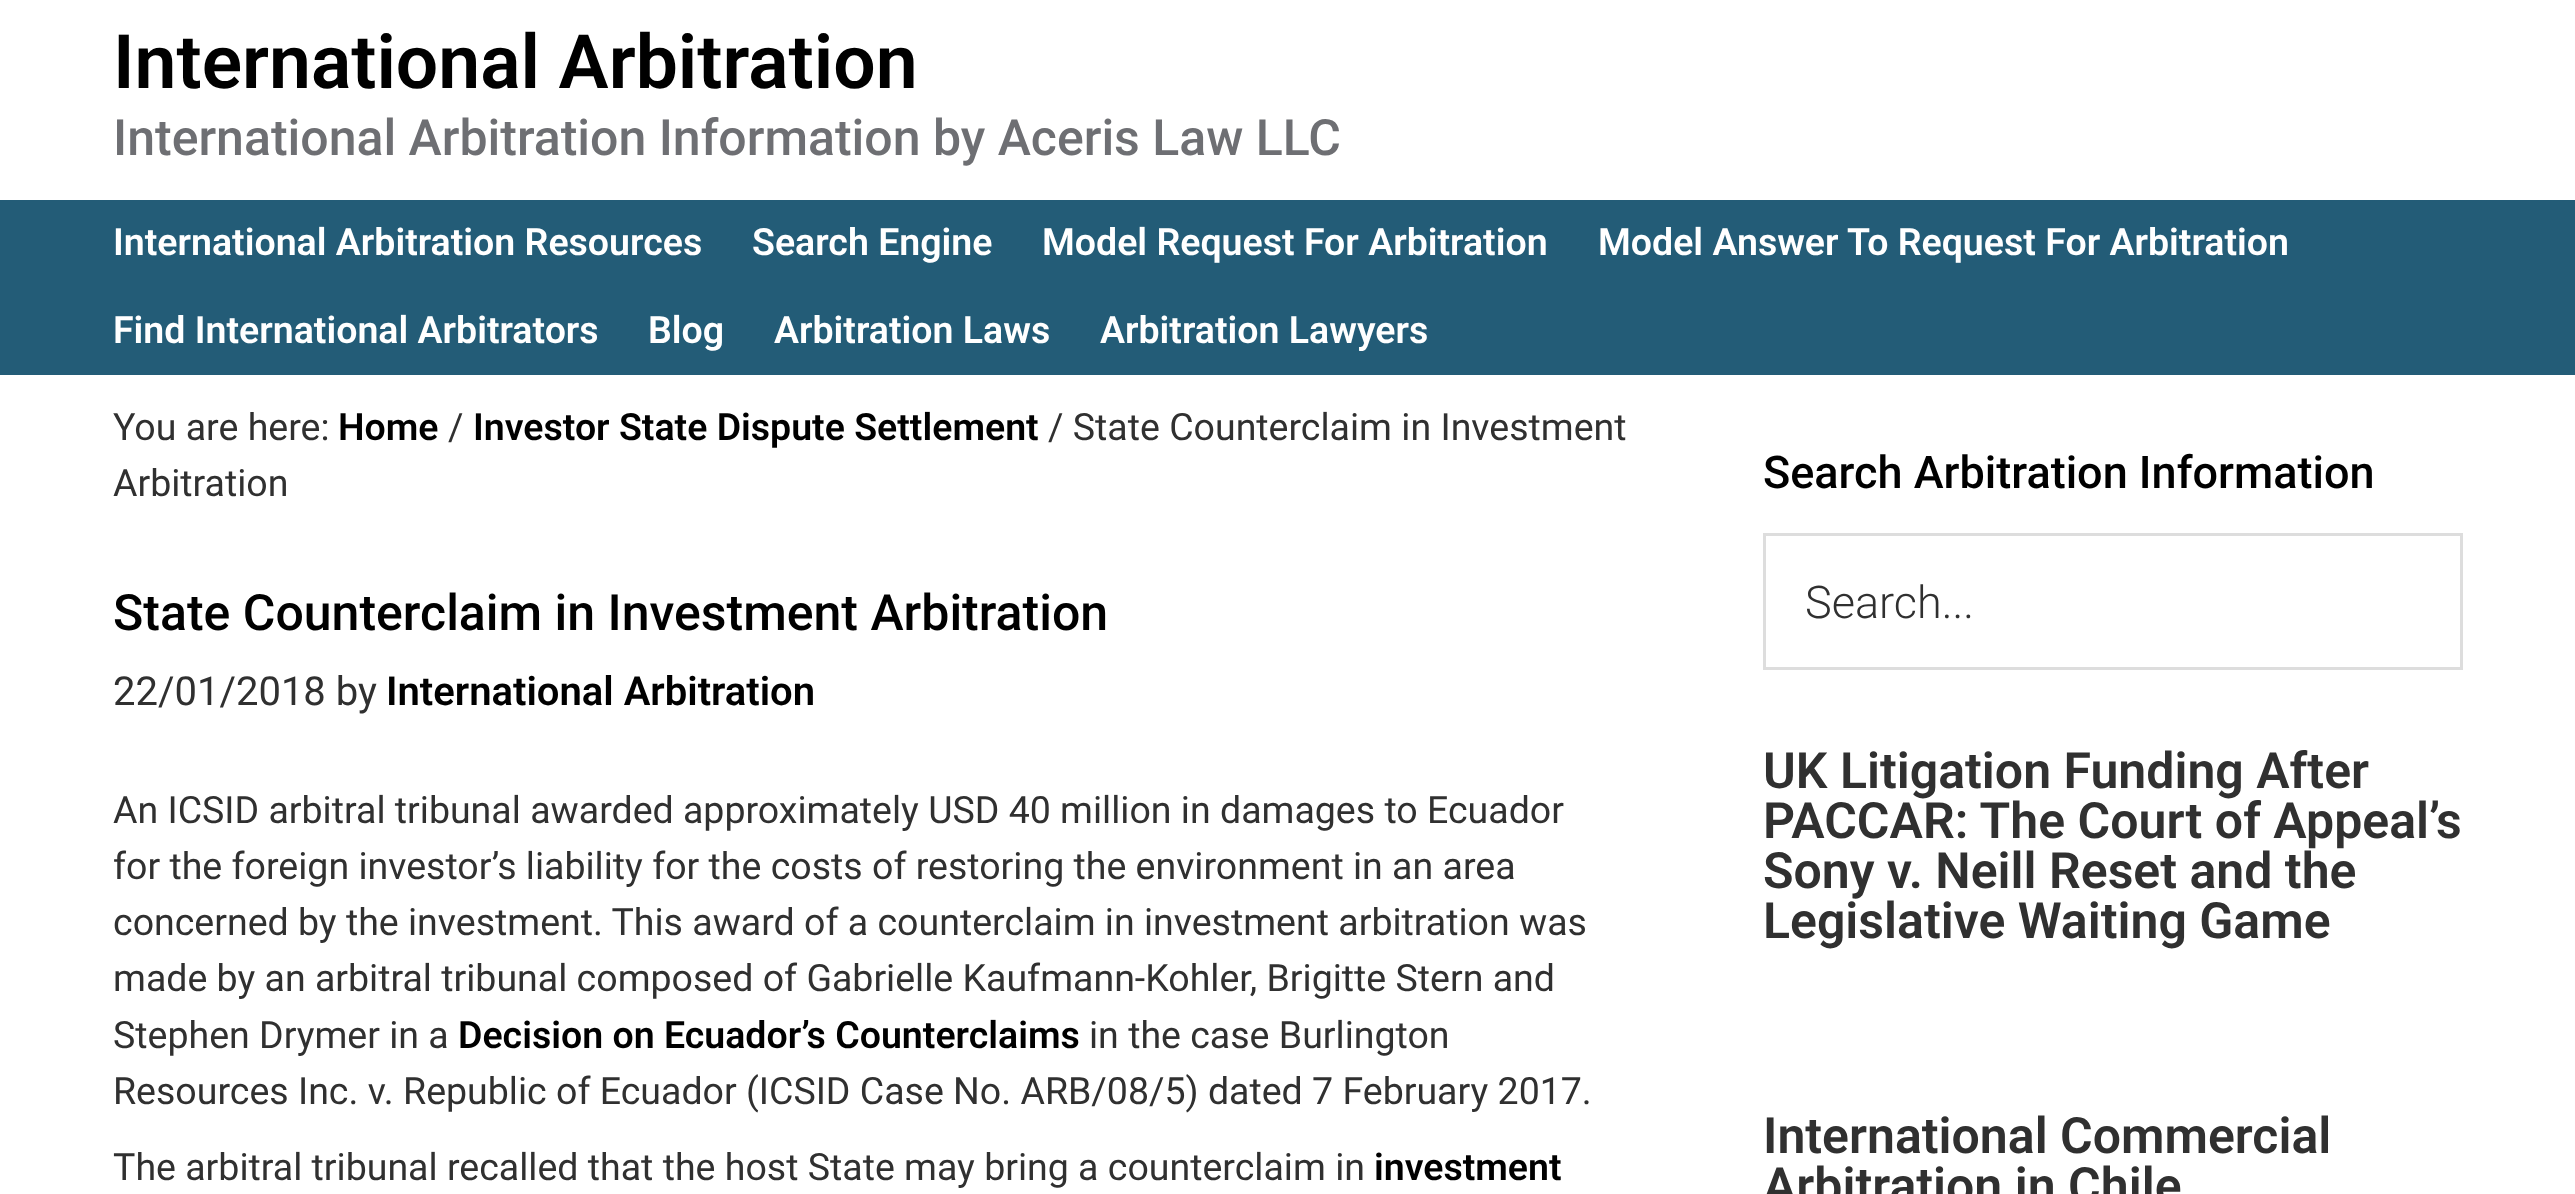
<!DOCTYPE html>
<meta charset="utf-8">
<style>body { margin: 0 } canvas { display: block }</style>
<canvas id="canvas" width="2575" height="1194"></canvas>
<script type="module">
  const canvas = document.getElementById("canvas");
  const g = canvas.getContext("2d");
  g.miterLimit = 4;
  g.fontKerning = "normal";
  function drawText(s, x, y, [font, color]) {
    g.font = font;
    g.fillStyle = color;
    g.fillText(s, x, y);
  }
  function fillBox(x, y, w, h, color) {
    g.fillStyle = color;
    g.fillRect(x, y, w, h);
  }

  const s1 = ["600 75px Roboto", "#000000"];
  const s2 = ["500 50px Roboto", "#6E6F73"];
  const s3 = ["600 37.5px Roboto", "#FFFFFF"];
  const s4 = ["37.5px Roboto", "#303030"];
  const s5 = ["600 37.5px Roboto", "#000000"];
  const s6 = ["500 50px Roboto", "#000000"];
  const s7 = ["40px Roboto", "#303030"];
  const s8 = ["600 40px Roboto", "#000000"];
  const s9 = ["500 45px Roboto", "#000000"];
  const s10 = ["300 45px Roboto", "#303030"];
  const s11 = ["600 50px Roboto", "#303030"];

  fillBox(0, 0, 2575, 1194, "#FFFFFF");
  drawText("International Arbitration", 113, 88, s1);
  drawText("International Arbitration Information by Aceris Law LLC", 113, 155, s2);
  fillBox(0, 200, 2575, 175, "#235C77");
  drawText("International Arbitration Resources", 113, 255, s3);
  drawText("Search Engine", 752, 255, s3);
  drawText("Model Request For Arbitration", 1042, 255, s3);
  drawText("Model Answer To Request For Arbitration", 1598, 255, s3);
  drawText("Find International Arbitrators", 113, 343, s3);
  drawText("Blog", 648, 343, s3);
  drawText("Arbitration Laws", 774, 343, s3);
  drawText("Arbitration Lawyers", 1100, 343, s3);
  drawText("You are here:", 113, 440, s4);
  drawText("Home", 338, 440, s5);
  drawText("/", 448, 440, s4);
  drawText("Investor State Dispute Settlement", 473, 440, s5);
  drawText("/ State Counterclaim in Investment", 1048, 440, s4);
  drawText("Arbitration", 113, 496, s4);
  drawText("State Counterclaim in Investment Arbitration", 113, 630, s6);
  drawText("22/01/2018 by", 113, 705, s7);
  drawText("International Arbitration", 386, 705, s8);
  drawText("An ICSID arbitral tribunal awarded approximately USD 40 million in damages to Ecuador", 113, 823, s4);
  drawText("for the foreign investor’s liability for the costs of restoring the environment in an area", 113, 879, s4);
  drawText("concerned by the investment. This award of a counterclaim in investment arbitration was", 113, 935, s4);
  drawText("made by an arbitral tribunal composed of Gabrielle Kaufmann-Kohler, Brigitte Stern and", 113, 991, s4);
  drawText("Stephen Drymer in a", 113, 1048, s4);
  drawText("Decision on Ecuador’s Counterclaims", 458, 1048, s5);
  drawText("in the case Burlington", 1089, 1048, s4);
  drawText("Resources Inc. v. Republic of Ecuador (ICSID Case No. ARB/08/5) dated 7 February 2017.", 113, 1104, s4);
  drawText("The arbitral tribunal recalled that the host State may bring a counterclaim in", 113, 1180, s4);
  drawText("investment", 1374, 1180, s5);
  drawText("Search Arbitration Information", 1763, 488, s9);
  g.strokeStyle = "#DDDDDD";
  g.lineWidth = 3;
  g.strokeRect(1764.5, 534.5, 697, 134);
  drawText("Search...", 1805, 618, s10);
  drawText("UK Litigation Funding After", 1763, 788, s11);
  drawText("PACCAR: The Court of Appeal’s", 1763, 838, s11);
  drawText("Sony v. Neill Reset and the", 1763, 888, s11);
  drawText("Legislative Waiting Game", 1763, 938, s11);
  drawText("International Commercial", 1763, 1153, s11);
  drawText("Arbitration in Chile", 1763, 1203, s11);
</script>
